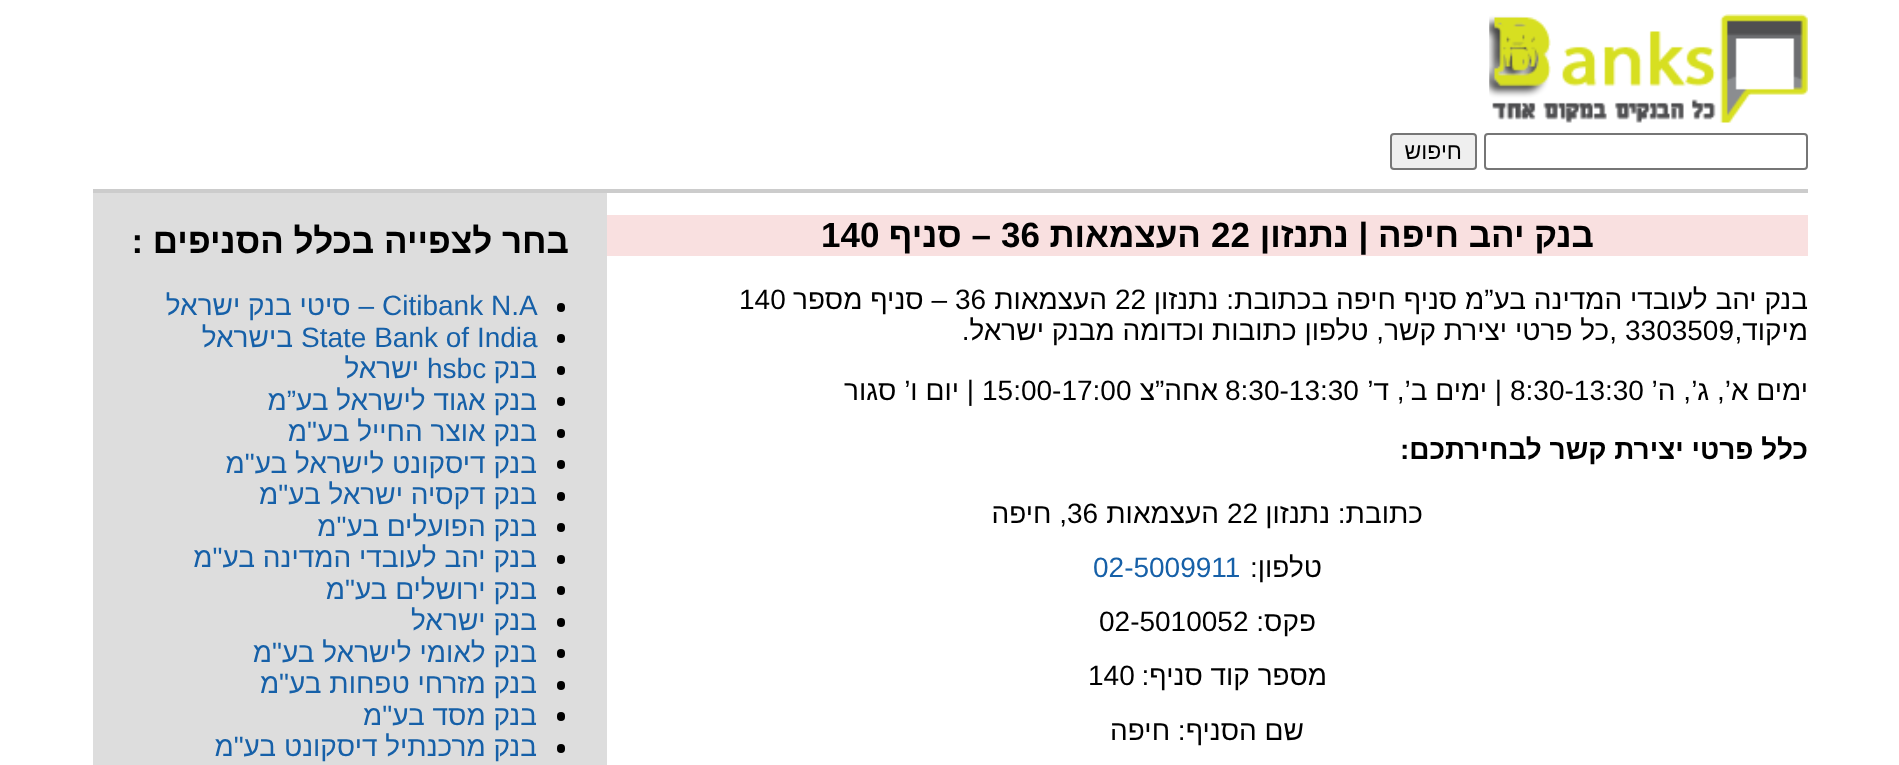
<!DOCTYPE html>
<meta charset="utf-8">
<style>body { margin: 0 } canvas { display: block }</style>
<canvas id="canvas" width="1899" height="765"></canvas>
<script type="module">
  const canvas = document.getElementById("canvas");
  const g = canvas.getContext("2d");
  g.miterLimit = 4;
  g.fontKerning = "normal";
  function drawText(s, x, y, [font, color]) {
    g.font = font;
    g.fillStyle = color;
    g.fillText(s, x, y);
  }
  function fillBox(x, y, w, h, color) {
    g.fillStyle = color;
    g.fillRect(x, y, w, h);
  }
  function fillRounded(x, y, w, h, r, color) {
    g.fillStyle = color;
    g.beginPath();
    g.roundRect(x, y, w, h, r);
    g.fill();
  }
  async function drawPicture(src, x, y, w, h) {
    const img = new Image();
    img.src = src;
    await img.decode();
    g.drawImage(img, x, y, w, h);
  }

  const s1 = ["23px Liberation Sans", "#000000"];
  const s2 = ["bold 35px Liberation Sans", "#000000"];
  const s3 = ["28px Liberation Sans", "#000000"];
  const s4 = ["bold 28px Liberation Sans", "#000000"];
  const s5 = ["28px Liberation Sans", "#1660A8"];

  fillBox(0, 0, 1899, 765, "#FFFFFF");
  await drawPicture("pic1.png", 1489, 14, 319, 109);
  g.beginPath();
  g.roundRect(1485, 134, 322, 35, 3);
  g.strokeStyle = "#767676";
  g.lineWidth = 2;
  g.stroke();
  g.fillStyle = "#EFEFEF";
  g.beginPath();
  g.roundRect(1391, 134, 85, 35, 3);
  g.fill();
  g.stroke();
  g.direction = "rtl";
  drawText("חיפוש", 1462, 159, s1);
  fillBox(93, 189, 1715, 4, "#CCCCCC");
  fillBox(607, 215, 1201, 41, "#F9E0E0");
  drawText("בנק יהב חיפה | נתנזון", 1594, 247, s2);
  g.direction = "ltr";
  drawText("22", 1211, 247, s2);
  g.direction = "rtl";
  drawText("העצמאות", 1201, 247, s2);
  g.direction = "ltr";
  drawText("36", 1001, 247, s2);
  g.direction = "rtl";
  drawText("– סניף", 991, 247, s2);
  g.direction = "ltr";
  drawText("140", 821, 247, s2);
  g.direction = "rtl";
  drawText("בנק יהב לעובדי המדינה בע”מ סניף חיפה בכתובת: נתנזון", 1808, 309, s3);
  g.direction = "ltr";
  drawText("22", 1115, 309, s3);
  g.direction = "rtl";
  drawText("העצמאות", 1107, 309, s3);
  g.direction = "ltr";
  drawText("36", 955, 309, s3);
  g.direction = "rtl";
  drawText("– סניף מספר", 947, 309, s3);
  g.direction = "ltr";
  drawText("140", 739, 309, s3);
  g.direction = "rtl";
  drawText("מיקוד,", 1808, 340, s3);
  g.direction = "ltr";
  drawText("3303509", 1625, 340, s3);
  g.direction = "rtl";
  drawText(",כל פרטי יצירת קשר, טלפון כתובות וכדומה מבנק ישראל.", 1617, 340, s3);
  drawText("ימים א’, ג’, ה’", 1808, 400, s3);
  g.direction = "ltr";
  drawText("8:30-13:30", 1510, 400, s3);
  g.direction = "rtl";
  drawText("| ימים ב’, ד’", 1502, 400, s3);
  g.direction = "ltr";
  drawText("8:30-13:30", 1225, 400, s3);
  g.direction = "rtl";
  drawText("אחה”צ", 1218, 400, s3);
  g.direction = "ltr";
  drawText("15:00-17:00", 982, 400, s3);
  g.direction = "rtl";
  drawText("| יום ו’ סגור", 974, 400, s3);
  drawText("כלל פרטי יצירת קשר לבחירתכם:", 1808, 459, s4);
  drawText("כתובת: נתנזון", 1423, 523, s3);
  g.direction = "ltr";
  drawText("22", 1227, 523, s3);
  g.direction = "rtl";
  drawText("העצמאות", 1219, 523, s3);
  g.direction = "ltr";
  drawText("36", 1067, 523, s3);
  g.direction = "rtl";
  drawText(", חיפה", 1067, 523, s3);
  drawText("טלפון:", 1322, 577, s3);
  g.direction = "ltr";
  drawText("02-5009911", 1093, 577, s5);
  g.direction = "rtl";
  drawText("פקס:", 1316, 631, s3);
  g.direction = "ltr";
  drawText("02-5010052", 1099, 631, s3);
  g.direction = "rtl";
  drawText("מספר קוד סניף:", 1327, 685, s3);
  g.direction = "ltr";
  drawText("140", 1088, 685, s3);
  g.direction = "rtl";
  drawText("שם הסניף: חיפה", 1304, 740, s3);
  fillBox(93, 193, 514, 572, "#DDDDDD");
  drawText("בחר לצפייה בכלל הסניפים :", 569, 253, s2);
  fillRounded(557, 303, 8, 9, 4, "#000000");
  g.direction = "ltr";
  drawText("Citibank N.A", 382, 315, s5);
  g.direction = "rtl";
  drawText("– סיטי בנק ישראל", 374, 315, s5);
  fillRounded(557, 334, 8, 9, 4, "#000000");
  g.direction = "ltr";
  drawText("State Bank of India", 301, 347, s5);
  g.direction = "rtl";
  drawText("בישראל", 293, 347, s5);
  fillRounded(557, 366, 8, 9, 4, "#000000");
  drawText("בנק", 537, 378, s5);
  g.direction = "ltr";
  drawText("hsbc", 427, 378, s5);
  g.direction = "rtl";
  drawText("ישראל", 419, 378, s5);
  fillRounded(557, 397, 8, 9, 4, "#000000");
  drawText("בנק אגוד לישראל בע”מ", 537, 410, s5);
  fillRounded(557, 429, 8, 9, 4, "#000000");
  drawText("בנק אוצר החייל בע\"מ", 537, 441, s5);
  fillRounded(557, 460, 8, 9, 4, "#000000");
  drawText("בנק דיסקונט לישראל בע\"מ", 537, 473, s5);
  fillRounded(557, 492, 8, 9, 4, "#000000");
  drawText("בנק דקסיה ישראל בע\"מ", 537, 504, s5);
  fillRounded(557, 523, 8, 9, 4, "#000000");
  drawText("בנק הפועלים בע\"מ", 537, 536, s5);
  fillRounded(557, 555, 8, 9, 4, "#000000");
  drawText("בנק יהב לעובדי המדינה בע\"מ", 537, 567, s5);
  fillRounded(557, 586, 8, 9, 4, "#000000");
  drawText("בנק ירושלים בע\"מ", 537, 599, s5);
  fillRounded(557, 618, 8, 9, 4, "#000000");
  drawText("בנק ישראל", 537, 630, s5);
  fillRounded(557, 649, 8, 9, 4, "#000000");
  drawText("בנק לאומי לישראל בע\"מ", 537, 662, s5);
  fillRounded(557, 681, 8, 9, 4, "#000000");
  drawText("בנק מזרחי טפחות בע\"מ", 537, 693, s5);
  fillRounded(557, 712, 8, 9, 4, "#000000");
  drawText("בנק מסד בע\"מ", 537, 725, s5);
  fillRounded(557, 744, 8, 9, 4, "#000000");
  drawText("בנק מרכנתיל דיסקונט בע\"מ", 537, 756, s5);
</script>
